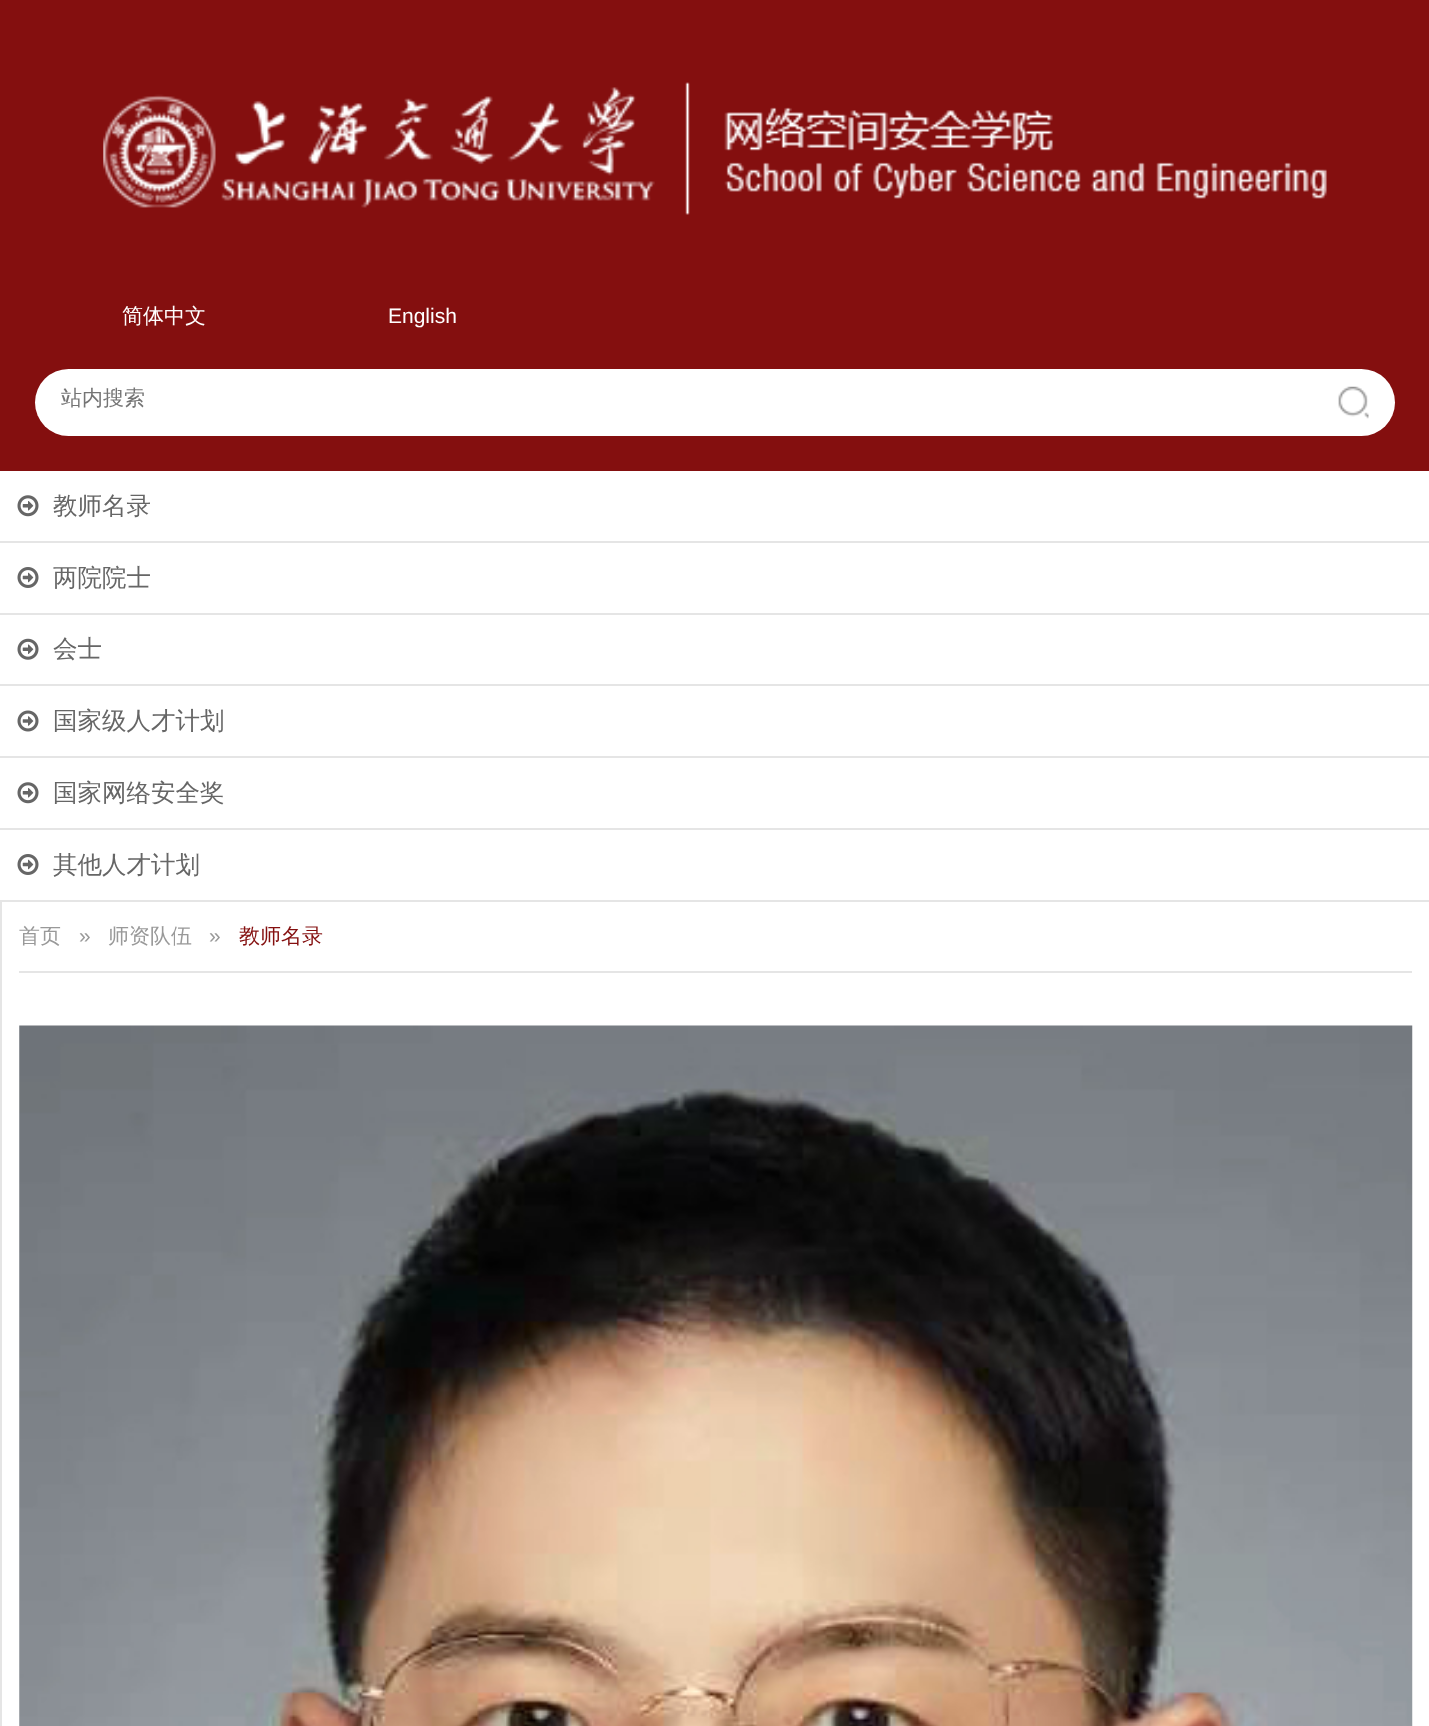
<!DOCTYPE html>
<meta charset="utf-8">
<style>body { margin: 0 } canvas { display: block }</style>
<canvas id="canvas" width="1429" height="1726"></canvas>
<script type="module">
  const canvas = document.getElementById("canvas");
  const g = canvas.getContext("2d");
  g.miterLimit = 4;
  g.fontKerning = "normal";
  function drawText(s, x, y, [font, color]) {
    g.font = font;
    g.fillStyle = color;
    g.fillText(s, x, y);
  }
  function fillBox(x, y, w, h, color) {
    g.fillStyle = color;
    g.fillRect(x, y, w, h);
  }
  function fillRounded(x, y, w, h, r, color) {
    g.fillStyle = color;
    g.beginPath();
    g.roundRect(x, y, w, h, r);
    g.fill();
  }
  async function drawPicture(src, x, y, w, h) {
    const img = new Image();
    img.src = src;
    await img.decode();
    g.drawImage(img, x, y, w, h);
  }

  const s1 = ["500 21px WenQuanYi Zen Hei", "#FFFFFF"];
  const s2 = ["21px Liberation Sans", "#FFFFFF"];
  const s3 = ["500 21px WenQuanYi Zen Hei", "#757575"];
  const s4 = ["500 24.5px WenQuanYi Zen Hei", "#666666"];
  const s5 = ["500 21px WenQuanYi Zen Hei", "#999999"];
  const s6 = ["21px Liberation Sans", "#999999"];
  const s7 = ["500 21px WenQuanYi Zen Hei", "#840F0F"];

  fillBox(0, 0, 1429, 1726, "#FFFFFF");
  fillBox(0, 0, 1429, 471, "#840F0F");
  await drawPicture("pic1.png", 103, 82, 1224, 133);
  drawText("简体中文", 122, 323, s1);
  drawText("English", 388, 323, s2);
  fillRounded(35, 369, 1360, 67, 33.5, "#FFFFFF");
  drawText("站内搜索", 61, 405, s3);
  await drawPicture("pic2.png", 1338, 386, 31, 33);
  fillBox(0, 541, 1429, 2, "#E5E5E5");
  await drawPicture("pic3.png", 17, 495, 22, 22);
  drawText("教师名录", 53, 514, s4);
  fillBox(0, 613, 1429, 2, "#E5E5E5");
  await drawPicture("pic4.png", 17, 567, 22, 21);
  drawText("两院院士", 53, 586, s4);
  fillBox(0, 684, 1429, 2, "#E5E5E5");
  await drawPicture("pic5.png", 17, 638, 22, 22);
  drawText("会士", 53, 657, s4);
  fillBox(0, 756, 1429, 2, "#E5E5E5");
  await drawPicture("pic6.png", 17, 710, 22, 22);
  drawText("国家级人才计划", 53, 729, s4);
  fillBox(0, 828, 1429, 2, "#E5E5E5");
  await drawPicture("pic3.png", 17, 782, 22, 22);
  drawText("国家网络安全奖", 53, 801, s4);
  fillBox(0, 900, 1429, 2, "#E5E5E5");
  await drawPicture("pic4.png", 17, 854, 22, 21);
  drawText("其他人才计划", 53, 873, s4);
  fillBox(0, 901, 2, 825, "#E5E5E5");
  fillBox(19, 971, 1393, 2, "#E5E5E5");
  drawText("首页", 19, 943, s5);
  drawText("»", 79, 943, s6);
  drawText("师资队伍", 108, 943, s5);
  drawText("»", 209, 943, s6);
  drawText("教师名录", 239, 943, s7);
  await drawPicture("pic7.png", 19, 1025, 1394, 701);
</script>
